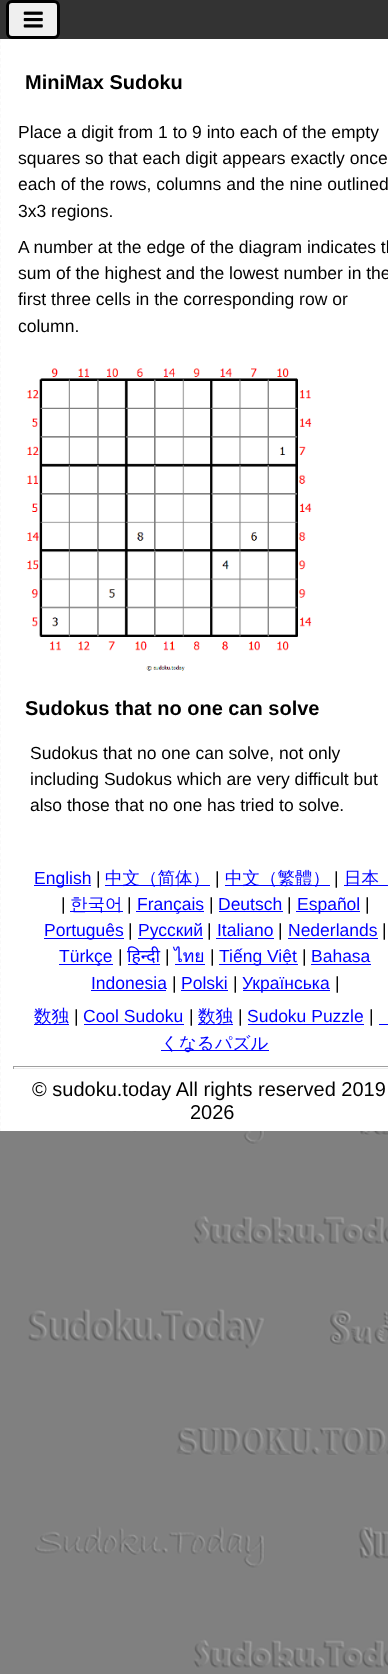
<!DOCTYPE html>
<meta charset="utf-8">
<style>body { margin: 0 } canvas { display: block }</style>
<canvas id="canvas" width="388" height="1674"></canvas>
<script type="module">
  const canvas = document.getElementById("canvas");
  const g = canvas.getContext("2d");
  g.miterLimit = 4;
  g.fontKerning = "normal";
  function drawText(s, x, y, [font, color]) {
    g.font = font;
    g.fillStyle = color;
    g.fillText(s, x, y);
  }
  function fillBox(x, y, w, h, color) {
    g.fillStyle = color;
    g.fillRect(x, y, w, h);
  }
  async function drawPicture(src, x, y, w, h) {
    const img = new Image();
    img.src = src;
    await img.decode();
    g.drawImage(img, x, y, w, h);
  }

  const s1 = ["bold 20px Liberation Sans", "#000000"];
  const s2 = ["17.5px Liberation Sans", "#000000"];
  const s3 = ["17.5px Liberation Sans", "#0000FF"];
  const s4 = ["500 17.5px WenQuanYi Zen Hei", "#0000FF"];
  const s5 = ["17.5px Noto Sans", "#0000FF"];
  const s6 = ["17.5px Loma", "#0000FF"];
  const s7 = ["20px Liberation Sans", "#000000"];

  fillBox(0, 0, 388, 1674, "#FFFFFF");
  await drawPicture("pic1.png", 0, 1131, 388, 543);
  fillBox(0, 0, 388, 39, "#333333");
  g.fillStyle = "#EFEFEF";
  g.beginPath();
  g.roundRect(7.5, 1.5, 51, 36, 4.5);
  g.fill();
  g.strokeStyle = "#000000";
  g.lineWidth = 3;
  g.stroke();
  await drawPicture("pic2.png", 23, 11, 20, 17);
  g.beginPath();
  g.moveTo(-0.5, 39);
  g.lineTo(-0.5, 1131);
  g.strokeStyle = "#C0C0C0";
  g.lineWidth = 1.2;
  g.setLineDash([3.75, 2.51]);
  g.stroke();
  drawText("MiniMax Sudoku", 25, 89, s1);
  drawText("Place a digit from 1 to 9 into each of the empty", 18, 138, s2);
  drawText("squares so that each digit appears exactly once", 18, 164, s2);
  drawText("each of the rows, columns and the nine outlined", 18, 190, s2);
  drawText("3x3 regions.", 18, 217, s2);
  drawText("A number at the edge of the diagram indicates th", 18, 253, s2);
  drawText("sum of the highest and the lowest number in the", 18, 279, s2);
  drawText("first three cells in the corresponding row or", 18, 305, s2);
  drawText("column.", 18, 332, s2);
  await drawPicture("pic3.png", 27, 368, 285, 303);
  drawText("Sudokus that no one can solve", 25, 715, s1);
  drawText("Sudokus that no one can solve, not only", 30, 759, s2);
  drawText("including Sudokus which are very difficult but", 30, 785, s2);
  drawText("also those that no one has tried to solve.", 30, 811, s2);
  fillBox(34, 885, 57, 1, "#0000FF");
  drawText("English", 34, 884, s3);
  drawText("|", 96, 884, s2);
  fillBox(105, 885, 105, 1, "#0000FF");
  drawText("中文（简体）", 105, 884, s4);
  drawText("|", 215, 884, s2);
  fillBox(225, 885, 105, 1, "#0000FF");
  drawText("中文（繁體）", 225, 884, s4);
  drawText("|", 334, 884, s2);
  fillBox(344, 885, 44, 1, "#0000FF");
  drawText("日本", 344, 884, s4);
  drawText("|", 61, 910, s2);
  fillBox(70, 911, 53, 1, "#0000FF");
  drawText("한국어", 70, 910, s4);
  drawText("|", 127, 910, s2);
  fillBox(136, 911, 68, 1, "#0000FF");
  drawText("Français", 137, 910, s3);
  drawText("|", 209, 910, s2);
  drawText("Deutsch", 218, 910, s3);
  fillBox(219, 911, 64, 1, "#0000FF");
  drawText("|", 287, 910, s2);
  fillBox(296, 911, 64, 1, "#0000FF");
  drawText("Español", 297, 910, s3);
  drawText("|", 365, 910, s2);
  fillBox(44, 938, 80, 1, "#0000FF");
  drawText("Português", 44, 936, s3);
  drawText("|", 128, 936, s2);
  fillBox(138, 938, 65, 1, "#0000FF");
  drawText("Русский", 138, 936, s3);
  drawText("|", 207, 936, s2);
  drawText("Italiano", 217, 936, s3);
  fillBox(216, 938, 58, 1, "#0000FF");
  drawText("|", 278, 936, s2);
  drawText("Nederlands", 288, 936, s3);
  fillBox(288, 938, 90, 1, "#0000FF");
  drawText("|", 382, 936, s2);
  fillBox(59, 964, 54, 1, "#0000FF");
  drawText("Türkçe", 59, 962, s3);
  drawText("|", 118, 962, s2);
  fillBox(128, 964, 32, 1, "#0000FF");
  drawText("हिन्दी", 127, 962, s5);
  drawText("|", 165, 962, s2);
  drawText("ไทย", 174, 962, s6);
  fillBox(175, 964, 30, 1, "#0000FF");
  drawText("|", 210, 962, s2);
  fillBox(219, 964, 79, 1, "#0000FF");
  drawText("Tiếng Việt", 219, 962, s3);
  drawText("|", 302, 962, s2);
  drawText("Bahasa", 311, 962, s3);
  fillBox(311, 964, 60, 1, "#0000FF");
  drawText("Indonesia", 91, 989, s3);
  fillBox(91, 990, 75, 1, "#0000FF");
  drawText("|", 172, 989, s2);
  drawText("Polski", 181, 989, s3);
  fillBox(181, 990, 47, 1, "#0000FF");
  drawText("|", 233, 989, s2);
  fillBox(243, 990, 87, 1, "#0000FF");
  drawText("Українська", 242, 989, s3);
  drawText("|", 335, 989, s2);
  fillBox(34, 1024, 35, 1, "#0000FF");
  drawText("数独", 34, 1022, s4);
  drawText("|", 74, 1022, s2);
  drawText("Cool Sudoku", 83, 1022, s3);
  fillBox(84, 1024, 100, 1, "#0000FF");
  drawText("|", 189, 1022, s2);
  fillBox(198, 1024, 35, 1, "#0000FF");
  drawText("数独", 198, 1022, s4);
  drawText("|", 238, 1022, s2);
  drawText("Sudoku Puzzle", 247, 1022, s3);
  fillBox(248, 1024, 116, 1, "#0000FF");
  drawText("|", 369, 1022, s2);
  fillBox(161, 1050, 108, 1, "#0000FF");
  drawText("くなるパズル", 161, 1049, s4);
  fillBox(379, 1024, 9, 1, "#0000FF");
  fillBox(13, 1066, 375, 1, "#9F9F9F");
  fillBox(13, 1068, 375, 1, "#EEEEEE");
  fillBox(13, 1066, 1, 3, "#9F9F9F");
  drawText("© sudoku.today All rights reserved 2019", 32, 1096, s7);
  drawText("2026", 190, 1119, s7);
</script>
